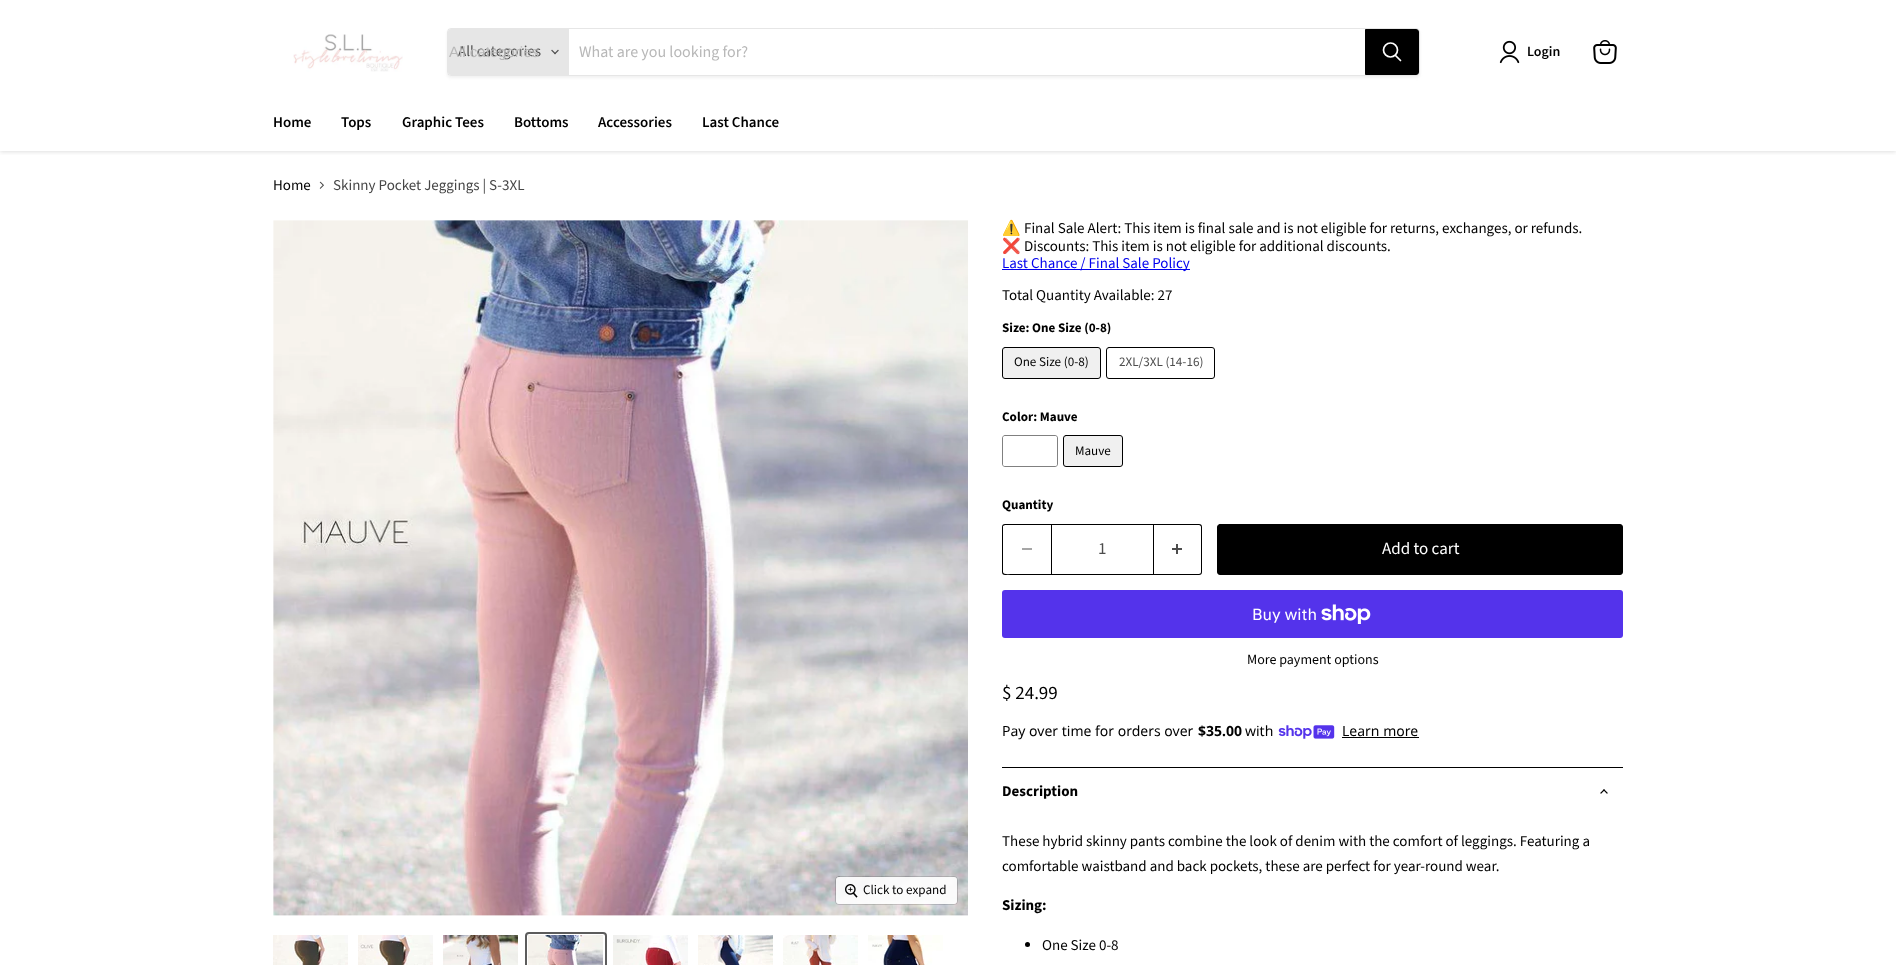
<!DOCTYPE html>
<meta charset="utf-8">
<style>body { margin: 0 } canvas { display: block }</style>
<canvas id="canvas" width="1896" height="965"></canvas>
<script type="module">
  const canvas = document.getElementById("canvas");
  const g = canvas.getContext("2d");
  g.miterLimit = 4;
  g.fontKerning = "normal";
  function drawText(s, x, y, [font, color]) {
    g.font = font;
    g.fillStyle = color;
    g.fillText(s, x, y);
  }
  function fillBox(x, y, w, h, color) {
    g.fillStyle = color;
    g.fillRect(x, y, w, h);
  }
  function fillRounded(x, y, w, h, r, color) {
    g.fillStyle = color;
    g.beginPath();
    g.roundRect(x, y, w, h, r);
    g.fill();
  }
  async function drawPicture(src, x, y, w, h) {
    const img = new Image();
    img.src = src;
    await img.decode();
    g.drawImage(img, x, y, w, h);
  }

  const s1 = ["15px Source Sans Pro", "#4D4D4D"];
  const s2 = ["15px Liberation Sans", "#B8B8B8"];
  const s3 = ["16px Source Sans Pro", "#B8B8B8"];
  const s4 = ["600 14px Source Sans Pro", "#000000"];
  const s5 = ["600 15px Source Sans Pro", "#000000"];
  const s6 = ["15px Source Sans Pro", "#000000"];
  const s7 = ["15px Source Sans Pro", "#464646"];
  const s8 = ["13.1px Source Sans Pro", "#000000"];
  const s9 = ["15px Noto Color Emoji", "#000000"];
  const s10 = ["15px Source Sans Pro", "#0000EE"];
  const s11 = ["bold 13.1px Source Sans Pro", "#000000"];
  const s12 = ["13.1px Source Sans Pro", "#4D4D4D"];
  const s13 = ["17px Source Sans Pro", "#4D4D4D"];
  const s14 = ["17px Source Sans Pro", "#FFFFFF"];
  const s15 = ["16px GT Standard", "#FFFFFF"];
  const s16 = ["14px Source Sans Pro", "#000000"];
  const s17 = ["19px Source Sans Pro", "#000000"];
  const s18 = ["14px Noto Sans", "#000000"];
  const s19 = ["bold 14px Noto Sans", "#000000"];
  const s20 = ["bold 15px Source Sans Pro", "#000000"];

  fillBox(0, 0, 1896, 965, "#FFFFFF");
  g.save();
  g.beginPath();
  g.rect(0, 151, 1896, 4);
  g.clip();
  g.fillStyle = "rgba(128, 128, 128, 0.25)";
  g.filter = "blur(2px)";
  g.beginPath();
  g.rect(0, 1, 1896, 151);
  g.fill();
  g.filter = "none";
  g.restore();
  await drawPicture("pic1.png", 293, 34, 110, 38);
  g.save();
  g.beginPath();
  g.moveTo(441, 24);
  g.lineTo(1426, 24);
  g.lineTo(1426, 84);
  g.lineTo(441, 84);
  g.closePath();
  g.moveTo(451, 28);
  g.lineTo(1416, 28);
  g.bezierCurveTo(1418, 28, 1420, 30, 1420, 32);
  g.lineTo(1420, 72);
  g.bezierCurveTo(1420, 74, 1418, 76, 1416, 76);
  g.lineTo(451, 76);
  g.bezierCurveTo(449, 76, 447, 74, 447, 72);
  g.lineTo(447, 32);
  g.bezierCurveTo(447, 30, 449, 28, 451, 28);
  g.closePath();
  g.clip("evenodd");
  g.fillStyle = "rgba(128, 128, 128, 0.11)";
  g.filter = "blur(1.5px)";
  g.beginPath();
  g.roundRect(447, 30, 973, 48, 4);
  g.fill();
  g.filter = "none";
  g.restore();
  g.beginPath();
  g.roundRect(447.5, 28.5, 972, 47, 3.5);
  g.strokeStyle = "rgba(128, 128, 128, 0.2)";
  g.stroke();
  g.fillStyle = "#E6E6E6";
  g.beginPath();
  g.roundRect(448, 29, 121, 46, [3, 0, 0, 3]);
  g.fill();
  drawText("All categories", 458, 56, s1);
  drawText("All categories", 449, 57, s2);
  await drawPicture("pic2.png", 551, 49, 8, 6);
  drawText("What are you looking for?", 579, 57, s3);
  g.fillStyle = "#000000";
  g.beginPath();
  g.roundRect(1365.5, 29.5, 53, 45, [0, 2.5, 2.5, 0]);
  g.fill();
  g.strokeStyle = "#000000";
  g.stroke();
  g.beginPath();
  g.moveTo(1400.5, 60.5);
  g.lineTo(1395.5, 55.5);
  g.strokeStyle = "#FFFFFF";
  g.lineWidth = 1.7;
  g.lineCap = "round";
  g.stroke();
  g.beginPath();
  g.arc(1390.5, 50, 7, 0, Math.PI * 2);
  g.stroke();
  await drawPicture("pic3.png", 1499, 40, 21, 24);
  drawText("Login", 1527, 56, s4);
  await drawPicture("pic4.png", 1593, 40, 24, 24);
  drawText("Home", 273, 127, s5);
  drawText("Tops", 341, 127, s5);
  drawText("Graphic Tees", 402, 127, s5);
  drawText("Bottoms", 514, 127, s5);
  drawText("Accessories", 598, 127, s5);
  drawText("Last Chance", 702, 127, s5);
  drawText("Home", 273, 190, s6);
  await drawPicture("pic5.png", 319, 181, 5, 8);
  drawText("Skinny Pocket Jeggings | S-3XL", 333, 190, s7);
  await drawPicture("pic6.png", 273, 220, 695, 696);
  g.beginPath();
  g.roundRect(835.5, 876.5, 122, 28, 3.5);
  g.strokeStyle = "rgba(0, 0, 0, 0.15)";
  g.lineWidth = 1;
  g.stroke();
  fillRounded(836, 877, 121, 27, 3, "rgba(255, 255, 255, 0.9)");
  await drawPicture("pic7.png", 845, 884, 13, 14);
  drawText("Click to expand", 863, 894, s8);
  await drawPicture("pic8.png", 273, 935, 75, 30);
  await drawPicture("pic9.png", 358, 935, 75, 30);
  await drawPicture("pic10.png", 443, 935, 75, 30);
  g.beginPath();
  g.roundRect(526, 933, 80, 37, 3);
  g.strokeStyle = "#5C5C5C";
  g.lineWidth = 2;
  g.stroke();
  await drawPicture("pic11.png", 528, 935, 75, 30);
  await drawPicture("pic12.png", 613, 935, 75, 30);
  await drawPicture("pic13.png", 698, 935, 75, 30);
  await drawPicture("pic14.png", 783, 935, 75, 30);
  await drawPicture("pic15.png", 868, 935, 75, 30);
  drawText("⚠️", 1002, 233, s9);
  drawText("Final Sale Alert: This item is final sale and is not eligible for returns, exchanges, or refunds.", 1024, 233, s6);
  drawText("❌", 1002, 251, s9);
  drawText("Discounts: This item is not eligible for additional discounts.", 1024, 251, s6);
  fillBox(1002, 269, 188, 1, "#0000EE");
  drawText("Last Chance / Final Sale Policy", 1002, 268, s10);
  drawText("Total Quantity Available: 27", 1002, 300, s6);
  drawText("Size: One Size (0-8)", 1002, 332, s11);
  g.fillStyle = "#F0F0F0";
  g.beginPath();
  g.roundRect(1002.5, 347.5, 98, 31, 2.5);
  g.fill();
  g.strokeStyle = "#000000";
  g.lineWidth = 1;
  g.stroke();
  drawText("One Size (0-8)", 1014, 366, s8);
  g.beginPath();
  g.roundRect(1106.5, 347.5, 108, 31, 2.5);
  g.stroke();
  drawText("2XL/3XL (14-16)", 1119, 366, s12);
  drawText("Color: Mauve", 1002, 421, s11);
  g.beginPath();
  g.roundRect(1002.5, 435.5, 55, 31, 2.5);
  g.strokeStyle = "#808080";
  g.stroke();
  g.fillStyle = "#FFFFFF";
  g.beginPath();
  g.moveTo(1005, 436);
  g.bezierCurveTo(1004, 436, 1003, 437, 1003, 438);
  g.lineTo(1003, 464);
  g.bezierCurveTo(1003, 465, 1004, 466, 1005, 466);
  g.lineTo(1055, 466);
  g.bezierCurveTo(1056, 466, 1057, 465, 1057, 464);
  g.lineTo(1057, 438);
  g.bezierCurveTo(1057, 437, 1056, 436, 1055, 436);
  g.closePath();
  g.fill();
  g.fillStyle = "#F0F0F0";
  g.beginPath();
  g.roundRect(1063.5, 435.5, 59, 31, 2.5);
  g.fill();
  g.strokeStyle = "#000000";
  g.stroke();
  drawText("Mauve", 1075, 455, s8);
  drawText("Quantity", 1002, 509, s11);
  g.beginPath();
  g.moveTo(1005, 524);
  g.lineTo(1051, 524);
  g.lineTo(1051, 575);
  g.lineTo(1005, 575);
  g.bezierCurveTo(1003, 575, 1002, 574, 1002, 572);
  g.lineTo(1002, 527);
  g.bezierCurveTo(1002, 525, 1003, 524, 1005, 524);
  g.closePath();
  g.moveTo(1005, 525);
  g.lineTo(1051, 525);
  g.lineTo(1051, 574);
  g.lineTo(1013, 574);
  g.bezierCurveTo(1009, 574, 1003, 575, 1003, 572);
  g.lineTo(1003, 526);
  g.closePath();
  g.fill("evenodd");
  fillBox(1022, 548, 10, 2, "#A6A6A6");
  g.strokeRect(1051.5, 524.5, 102, 50);
  drawText("1", 1098, 554, s13);
  g.fillStyle = "#000000";
  g.beginPath();
  g.moveTo(1154, 524);
  g.lineTo(1199, 524);
  g.bezierCurveTo(1201, 524, 1202, 525, 1202, 527);
  g.lineTo(1202, 572);
  g.bezierCurveTo(1202, 574, 1201, 575, 1199, 575);
  g.lineTo(1154, 575);
  g.closePath();
  g.moveTo(1154, 525);
  g.lineTo(1199, 525);
  g.bezierCurveTo(1200, 525, 1201, 526, 1201, 527);
  g.lineTo(1201, 572);
  g.bezierCurveTo(1201, 573, 1200, 574, 1199, 574);
  g.lineTo(1154, 574);
  g.closePath();
  g.fill("evenodd");
  await drawPicture("pic16.png", 1172, 544, 10, 10);
  g.beginPath();
  g.roundRect(1217.5, 524.5, 405, 50, 2.5);
  g.fill();
  g.stroke();
  drawText("Add to cart", 1382, 554, s14);
  fillRounded(1002, 590, 621, 48, 3, "#5433EB");
  drawText("Buy with", 1252, 620, s15);
  await drawPicture("pic17.png", 1321, 604, 50, 20);
  drawText("More payment options", 1247, 664, s16);
  drawText("$ 24.99", 1002, 699, s17);
  drawText("Pay over time for orders over", 1002, 736, s18);
  drawText("$35.00", 1198, 736, s19);
  drawText("with", 1245, 736, s18);
  await drawPicture("pic18.png", 1278, 725, 57, 14);
  drawText("Learn more", 1342, 736, s18);
  fillBox(1342, 737, 77, 1, "#000000");
  fillBox(1002, 767, 621, 1, "#000000");
  drawText("Description", 1002, 796, s20);
  await drawPicture("pic19.png", 1600, 789, 8, 5);
  drawText("These hybrid skinny pants combine the look of denim with the comfort of leggings. Featuring a", 1002, 846, s6);
  drawText("comfortable waistband and back pockets, these are perfect for year-round wear.", 1002, 871, s6);
  drawText("Sizing:", 1002, 910, s20);
  g.beginPath();
  g.arc(1027.5, 944.5, 2.5, 0, Math.PI * 2);
  g.fill();
  drawText("One Size 0-8", 1042, 950, s6);
</script>
